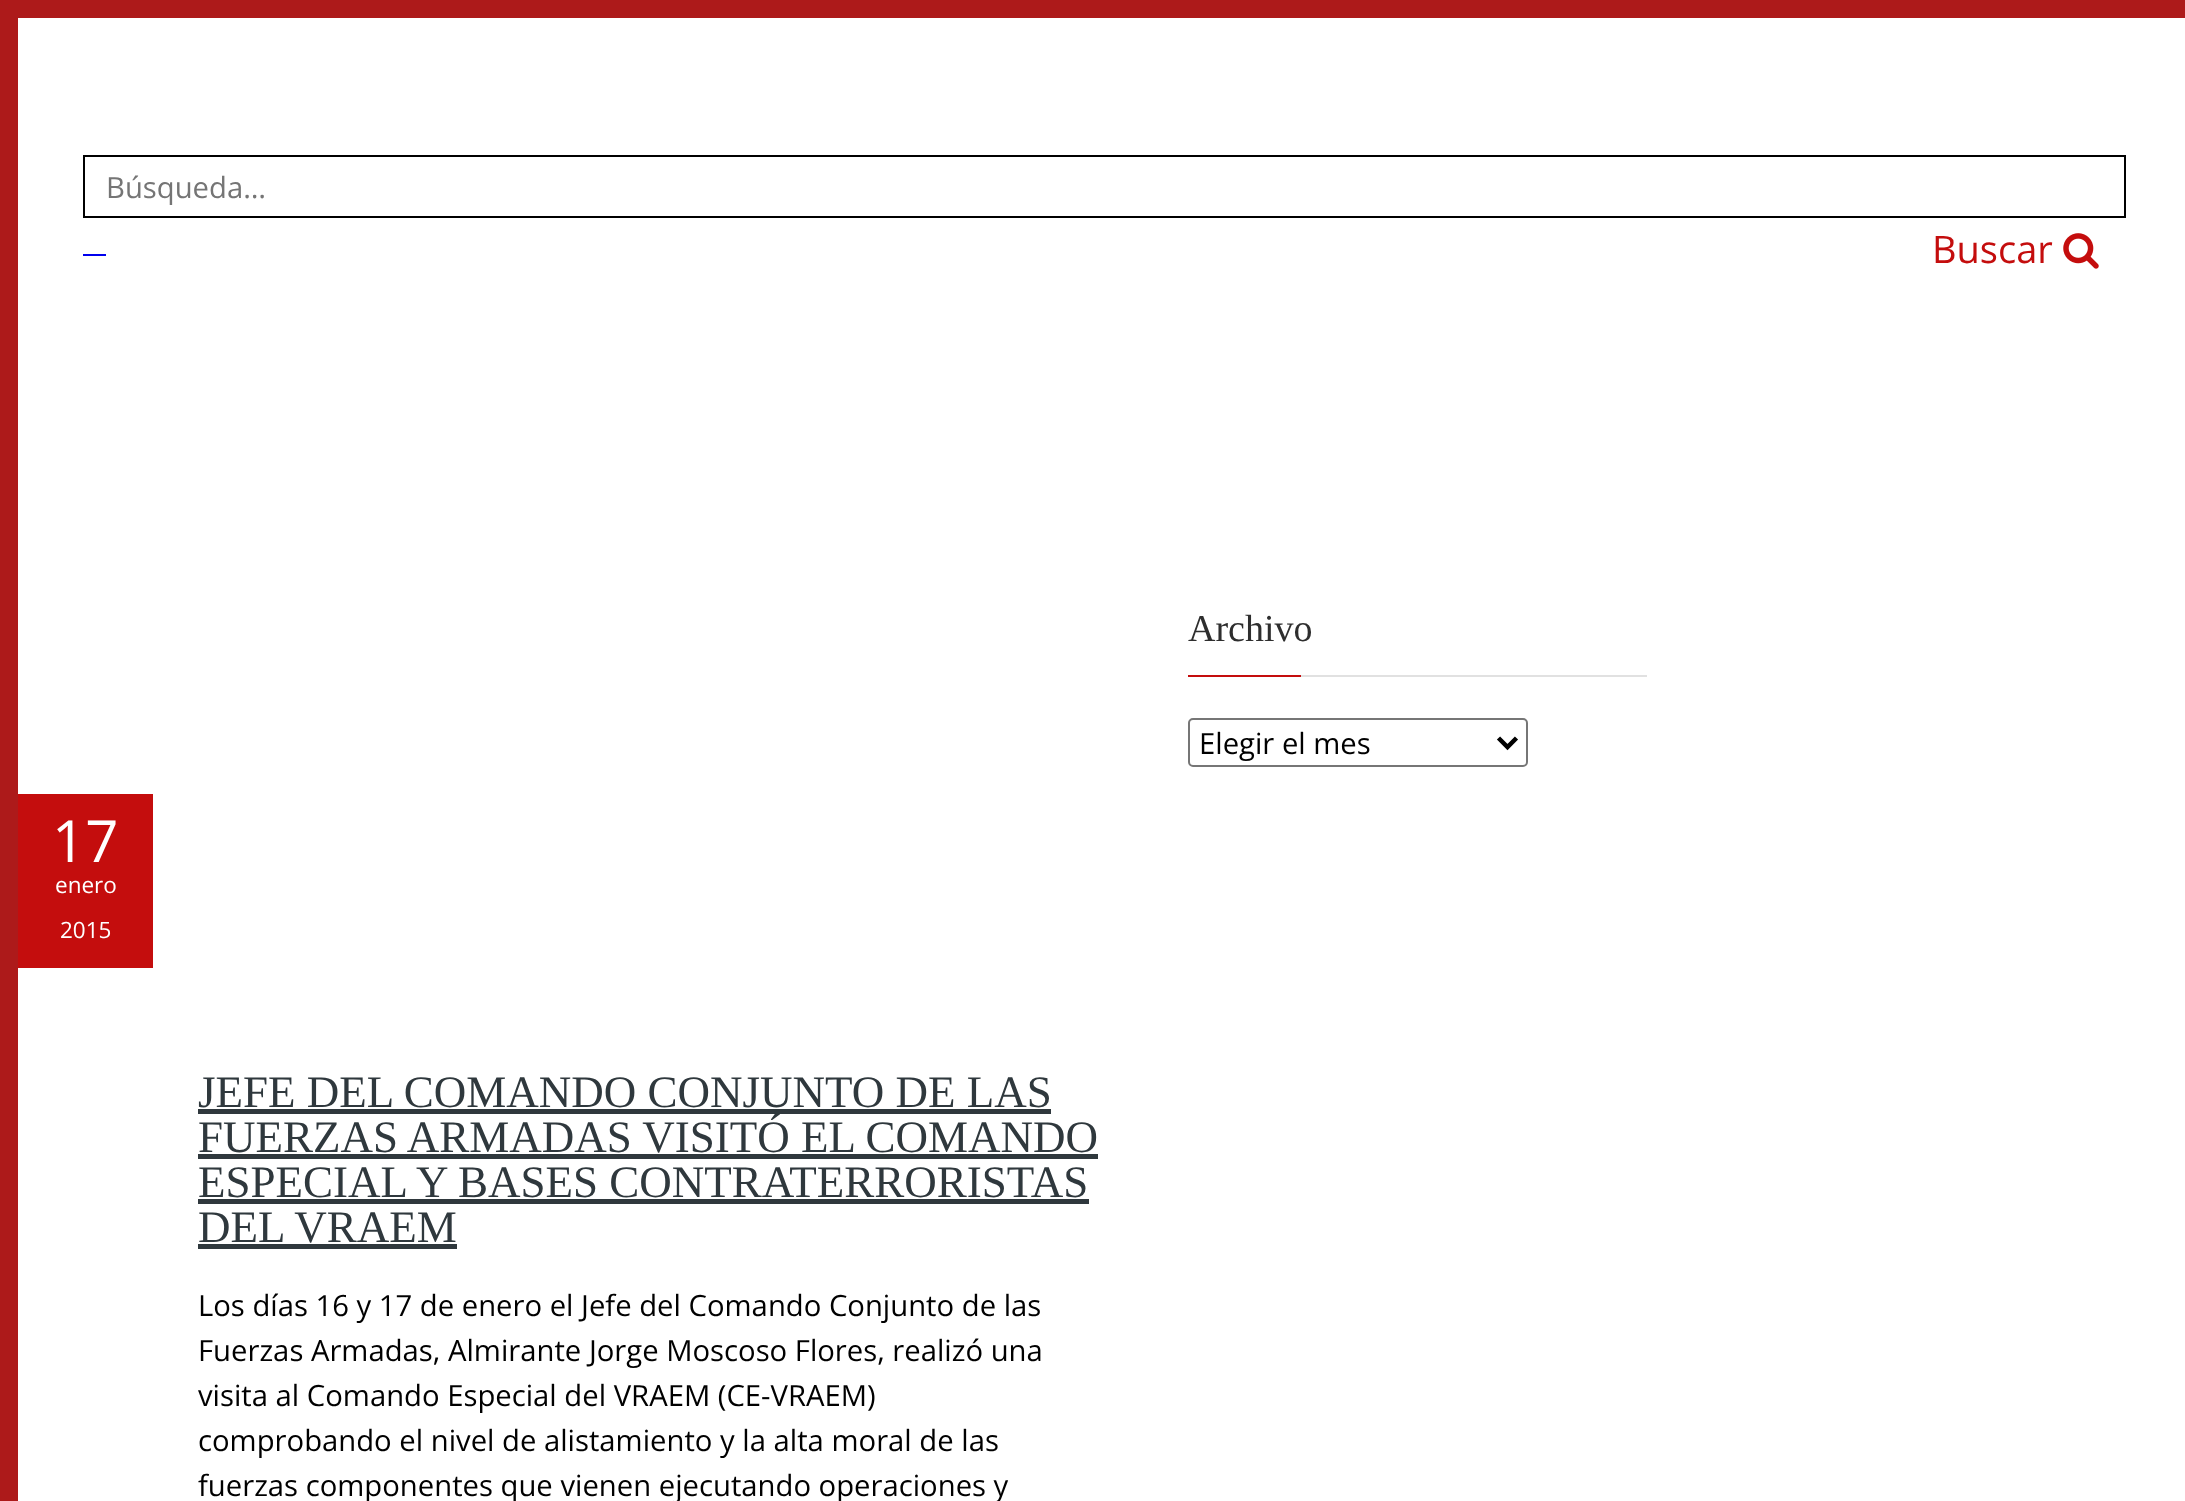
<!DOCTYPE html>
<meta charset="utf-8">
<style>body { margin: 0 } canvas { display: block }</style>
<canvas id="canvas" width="2185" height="1501"></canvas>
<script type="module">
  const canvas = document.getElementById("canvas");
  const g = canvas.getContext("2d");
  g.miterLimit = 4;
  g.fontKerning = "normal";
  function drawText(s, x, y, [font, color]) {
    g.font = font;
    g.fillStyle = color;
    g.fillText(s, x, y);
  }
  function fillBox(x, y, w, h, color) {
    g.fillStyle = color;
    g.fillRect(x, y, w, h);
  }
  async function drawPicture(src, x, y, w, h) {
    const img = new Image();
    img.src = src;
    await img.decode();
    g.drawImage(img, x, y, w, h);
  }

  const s1 = ["29.25px Open Sans", "#757575"];
  const s2 = ["38px Open Sans", "#C40D0D"];
  const s3 = ["38px Liberation Serif", "#2E2E2E"];
  const s4 = ["29.25px Open Sans", "#000000"];
  const s5 = ["58px Open Sans", "#FFFFFF"];
  const s6 = ["22.5px Open Sans", "#FFFFFF"];
  const s7 = ["45px Liberation Serif", "#2F383D"];

  fillBox(0, 0, 2185, 1501, "#AD1A1A");
  fillBox(18, 18, 2167, 1483, "#FFFFFF");
  g.strokeStyle = "#000000";
  g.lineWidth = 2;
  g.strokeRect(84, 156, 2041, 61);
  drawText("Búsqueda…", 106, 198, s1);
  fillBox(83, 254, 23, 2, "#0000EE");
  drawText("Buscar", 1932, 263, s2);
  await drawPicture("pic1.png", 2063, 233, 36, 36);
  fillBox(1301, 675, 346, 2, "#E1E1E1");
  drawText("Archivo", 1188, 641, s3);
  fillBox(1188, 675, 113, 2, "#C40D0D");
  g.beginPath();
  g.roundRect(1189, 719, 338, 47, 4);
  g.strokeStyle = "#767676";
  g.stroke();
  g.beginPath();
  g.moveTo(1498.5, 738);
  g.lineTo(1507.5, 747);
  g.lineTo(1516.5, 738);
  g.strokeStyle = "#000000";
  g.lineWidth = 4.5;
  g.stroke();
  drawText("Elegir el mes", 1199, 754, s4);
  fillBox(18, 794, 135, 174, "#C40D0D");
  drawText("17", 52, 862, s5);
  drawText("enero", 55, 893, s6);
  drawText("2015", 60, 938, s6);
  drawText("JEFE DEL COMANDO CONJUNTO DE LAS", 198, 1107, s7);
  fillBox(198, 1109, 853, 5, "#2F383D");
  drawText("FUERZAS ARMADAS VISITÓ EL COMANDO", 198, 1152, s7);
  fillBox(198, 1154, 900, 5, "#2F383D");
  drawText("ESPECIAL Y BASES CONTRATERRORISTAS", 198, 1197, s7);
  fillBox(198, 1199, 891, 5, "#2F383D");
  drawText("DEL VRAEM", 198, 1242, s7);
  fillBox(198, 1244, 259, 5, "#2F383D");
  drawText("Los días 16 y 17 de enero el Jefe del Comando Conjunto de las", 198, 1316, s4);
  drawText("Fuerzas Armadas, Almirante Jorge Moscoso Flores, realizó una", 198, 1361, s4);
  drawText("visita al Comando Especial del VRAEM (CE-VRAEM)", 198, 1406, s4);
  drawText("comprobando el nivel de alistamiento y la alta moral de las", 198, 1451, s4);
  drawText("fuerzas componentes que vienen ejecutando operaciones y", 198, 1496, s4);
</script>
